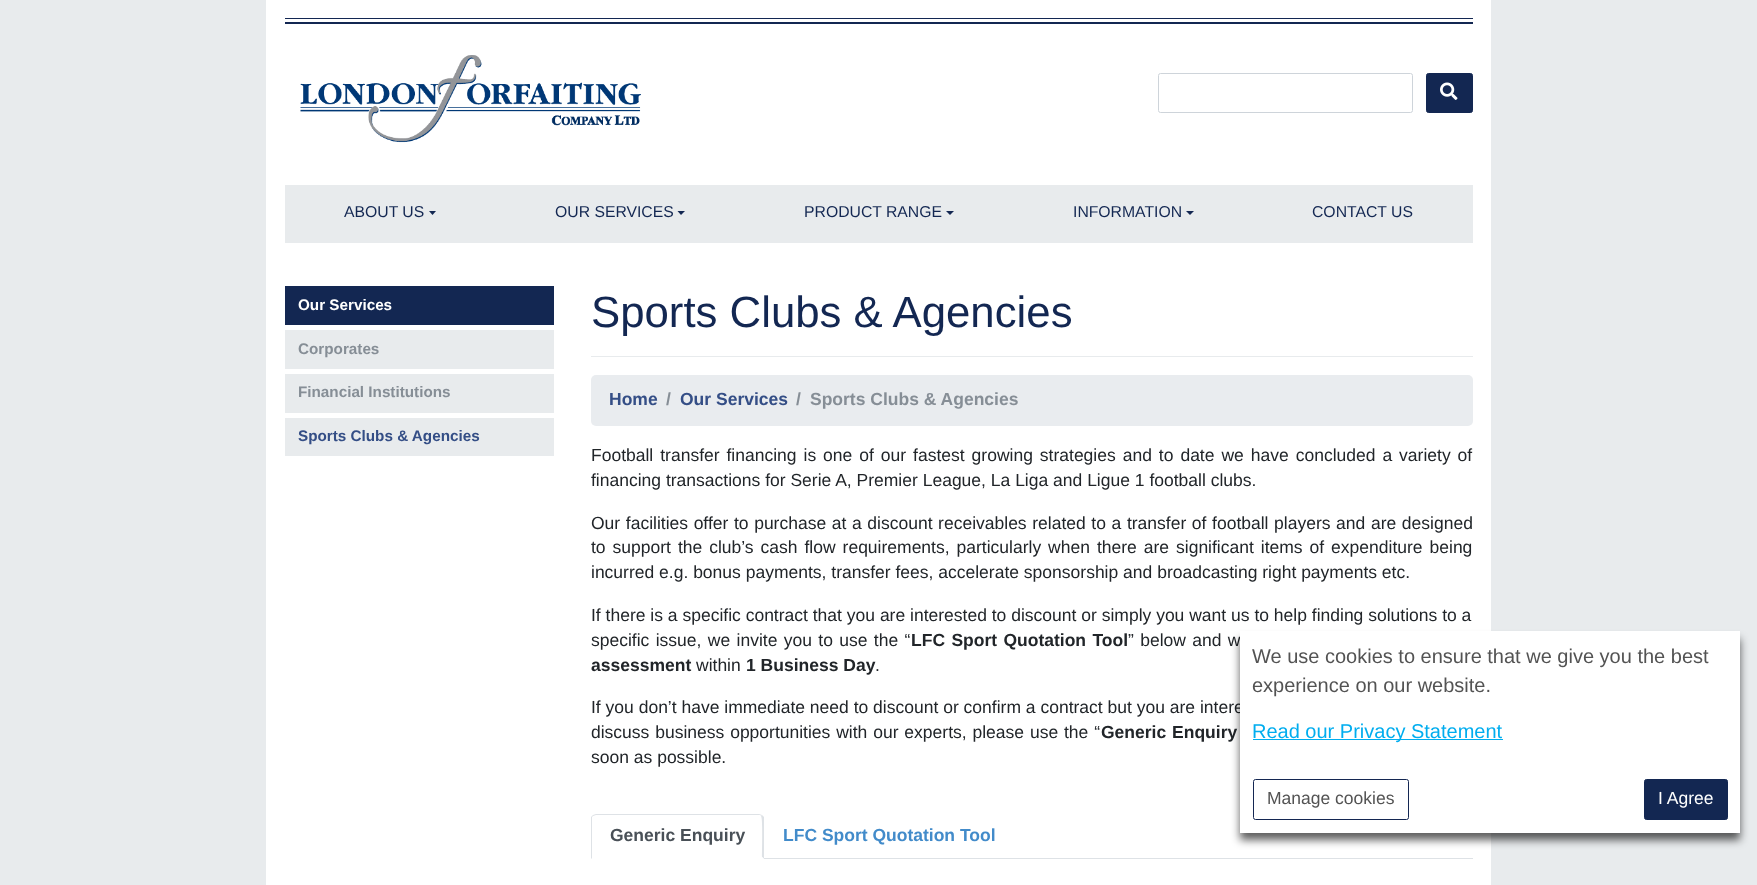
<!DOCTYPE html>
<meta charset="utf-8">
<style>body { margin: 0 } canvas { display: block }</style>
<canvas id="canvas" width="1757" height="885"></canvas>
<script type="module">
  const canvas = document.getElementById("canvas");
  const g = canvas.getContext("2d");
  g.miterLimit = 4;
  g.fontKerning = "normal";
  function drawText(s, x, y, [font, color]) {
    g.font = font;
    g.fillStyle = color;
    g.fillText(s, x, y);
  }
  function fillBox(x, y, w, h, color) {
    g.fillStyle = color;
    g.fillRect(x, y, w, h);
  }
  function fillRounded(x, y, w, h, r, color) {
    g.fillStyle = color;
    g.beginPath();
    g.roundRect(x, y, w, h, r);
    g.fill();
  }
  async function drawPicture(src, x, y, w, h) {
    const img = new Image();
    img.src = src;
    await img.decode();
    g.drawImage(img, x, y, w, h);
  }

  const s1 = ["15.75px Liberation Sans", "#132752"];
  const s2 = ["bold 15.25px Liberation Sans", "#FFFFFF"];
  const s3 = ["bold 15.25px Liberation Sans", "#868E96"];
  const s4 = ["bold 15.25px Liberation Sans", "#344E86"];
  const s5 = ["43.75px Liberation Sans", "#132752"];
  const s6 = ["bold 17.5px Liberation Sans", "#344E86"];
  const s7 = ["bold 17.5px Liberation Sans", "#868E96"];
  const s8 = ["17.5px Liberation Sans", "#212529"];
  const s9 = ["bold 17.5px Liberation Sans", "#212529"];
  const s10 = ["bold 17.5px Liberation Sans", "#495057"];
  const s11 = ["bold 17.5px Liberation Sans", "#428BCA"];
  const s12 = ["20px Liberation Sans", "#535353"];
  const s13 = ["20px Liberation Sans", "#00ADEF"];
  const s14 = ["17.5px Liberation Sans", "#535353"];
  const s15 = ["17.5px Liberation Sans", "#FFFFFF"];

  fillBox(0, 0, 1757, 885, "#E8EBED");
  fillBox(266, 0, 1225, 885, "#FFFFFF");
  fillBox(285, 22, 1188, 2, "#132752");
  fillBox(285, 18, 1188, 1, "#132752");
  await drawPicture("pic1.png", 300, 55, 341, 88);
  g.beginPath();
  g.roundRect(1158.5, 73.5, 254, 39, 2);
  g.strokeStyle = "#CED4DA";
  g.stroke();
  g.beginPath();
  g.roundRect(1426.5, 73.5, 46, 39, 2);
  g.fill();
  g.strokeStyle = "#132752";
  g.stroke();
  await drawPicture("pic2.png", 1440, 82, 18, 18);
  fillBox(285, 185, 1188, 58, "#E8EBED");
  drawText("ABOUT US", 344, 217, s1);
  g.beginPath();
  g.moveTo(429, 211);
  g.lineTo(436, 211);
  g.lineTo(432.5, 215);
  g.closePath();
  g.fill();
  drawText("OUR SERVICES", 555, 217, s1);
  g.beginPath();
  g.moveTo(677.5, 211);
  g.lineTo(685, 211);
  g.lineTo(681, 215);
  g.closePath();
  g.fill();
  drawText("PRODUCT RANGE", 804, 217, s1);
  g.beginPath();
  g.moveTo(946, 211);
  g.lineTo(954, 211);
  g.lineTo(950, 215);
  g.closePath();
  g.fill();
  drawText("INFORMATION", 1073, 217, s1);
  g.beginPath();
  g.moveTo(1186, 211);
  g.lineTo(1194, 211);
  g.lineTo(1190, 215);
  g.closePath();
  g.fill();
  drawText("CONTACT US", 1312, 217, s1);
  fillBox(285, 286, 269, 39, "#132752");
  drawText("Our Services", 298, 310, s2);
  fillBox(285, 330, 269, 39, "#E8EBED");
  drawText("Corporates", 298, 354, s3);
  fillBox(285, 374, 269, 39, "#E8EBED");
  drawText("Financial Institutions", 298, 397, s3);
  fillBox(285, 418, 269, 38, "#E8EBED");
  drawText("Sports Clubs & Agencies", 298, 441, s4);
  fillBox(591, 356, 882, 1, "#E8EBED");
  drawText("Sports Clubs & Agencies", 591, 327, s5);
  fillRounded(591, 375, 882, 51, 5, "#E9ECEF");
  drawText("Home", 609, 405, s6);
  drawText("/", 666, 405, s7);
  drawText("Our Services", 680, 405, s6);
  drawText("/", 796, 405, s7);
  drawText("Sports Clubs & Agencies", 810, 405, s7);
  g.wordSpacing = "2.1px";
  drawText("Football transfer financing is one of our fastest growing strategies and to date we have concluded a variety of", 591, 461, s8);
  g.wordSpacing = "0px";
  drawText("financing transactions for Serie A, Premier League, La Liga and Ligue 1 football clubs.", 591, 486, s8);
  g.wordSpacing = "0.75px";
  drawText("Our facilities offer to purchase at a discount receivables related to a transfer of football players and are designed", 591, 529, s8);
  g.wordSpacing = "2.1px";
  drawText("to support the club’s cash flow requirements, particularly when there are significant items of expenditure being", 591, 553, s8);
  g.wordSpacing = "0px";
  drawText("incurred e.g. bonus payments, transfer fees, accelerate sponsorship and broadcasting right payments etc.", 591, 578, s8);
  drawText("If there is a specific contract that you are interested to discount or simply you want us to help finding solutions to a", 591, 621, s8);
  g.wordSpacing = "1.5px";
  drawText("specific issue, we invite you to use the “", 591, 646, s8);
  drawText("LFC Sport Quotation Tool", 911, 646, s9);
  drawText("” below and w", 1128, 646, s8);
  g.wordSpacing = "0px";
  drawText("assessment", 591, 671, s9);
  drawText("within", 696, 671, s8);
  drawText("1 Business Day", 746, 671, s9);
  drawText(".", 875, 671, s8);
  drawText("If you don’t have immediate need to discount or confirm a contract but you are intere", 591, 713, s8);
  g.wordSpacing = "1px";
  drawText("discuss business opportunities with our experts, please use the “", 591, 738, s8);
  drawText("Generic Enquiry", 1101, 738, s9);
  g.wordSpacing = "0px";
  drawText("soon as possible.", 591, 763, s8);
  fillBox(764, 858, 709, 1, "#DEE2E6");
  g.beginPath();
  g.moveTo(596, 814);
  g.lineTo(593, 815);
  g.lineTo(593, 816);
  g.lineTo(596, 815);
  g.lineTo(759, 815);
  g.bezierCurveTo(760, 815, 761, 815, 761, 816);
  g.lineTo(762, 815);
  g.lineTo(759, 814);
  g.closePath();
  g.fill();
  g.beginPath();
  g.moveTo(762, 815);
  g.lineTo(764, 817);
  g.lineTo(764, 859);
  g.lineTo(762, 857);
  g.bezierCurveTo(762, 852, 763, 818, 761, 816);
  g.closePath();
  g.fill();
  g.fillStyle = "#FFFFFF";
  g.beginPath();
  g.moveTo(764, 859);
  g.lineTo(762, 857);
  g.lineTo(762, 858);
  g.lineTo(592, 858);
  g.lineTo(591, 859);
  g.closePath();
  g.fill();
  g.fillStyle = "#DEE2E6";
  g.beginPath();
  g.moveTo(591, 859);
  g.lineTo(592, 858);
  g.lineTo(592, 817);
  g.lineTo(593, 816);
  g.lineTo(593, 815);
  g.lineTo(591, 817);
  g.closePath();
  g.fill();
  drawText("Generic Enquiry", 610, 841, s10);
  drawText("LFC Sport Quotation Tool", 783, 841, s11);
  g.fillStyle = "rgba(0, 0, 0, 0.63)";
  g.filter = "blur(4px)";
  g.beginPath();
  g.rect(1240, 639, 500, 201);
  g.fill();
  g.filter = "none";
  fillBox(1240, 631, 500, 202, "#FFFFFF");
  drawText("We use cookies to ensure that we give you the best", 1252, 663, s12);
  drawText("experience on our website.", 1252, 692, s12);
  fillBox(1253, 739, 250, 1, "#00ADEF");
  drawText("Read our Privacy Statement", 1252, 738, s13);
  g.beginPath();
  g.roundRect(1253.5, 779.5, 155, 40, 2);
  g.strokeStyle = "#142752";
  g.stroke();
  drawText("Manage cookies", 1267, 804, s14);
  g.fillStyle = "#132752";
  g.beginPath();
  g.roundRect(1644.5, 779.5, 83, 40, 2);
  g.fill();
  g.strokeStyle = "#132752";
  g.stroke();
  drawText("I Agree", 1658, 804, s15);
</script>
